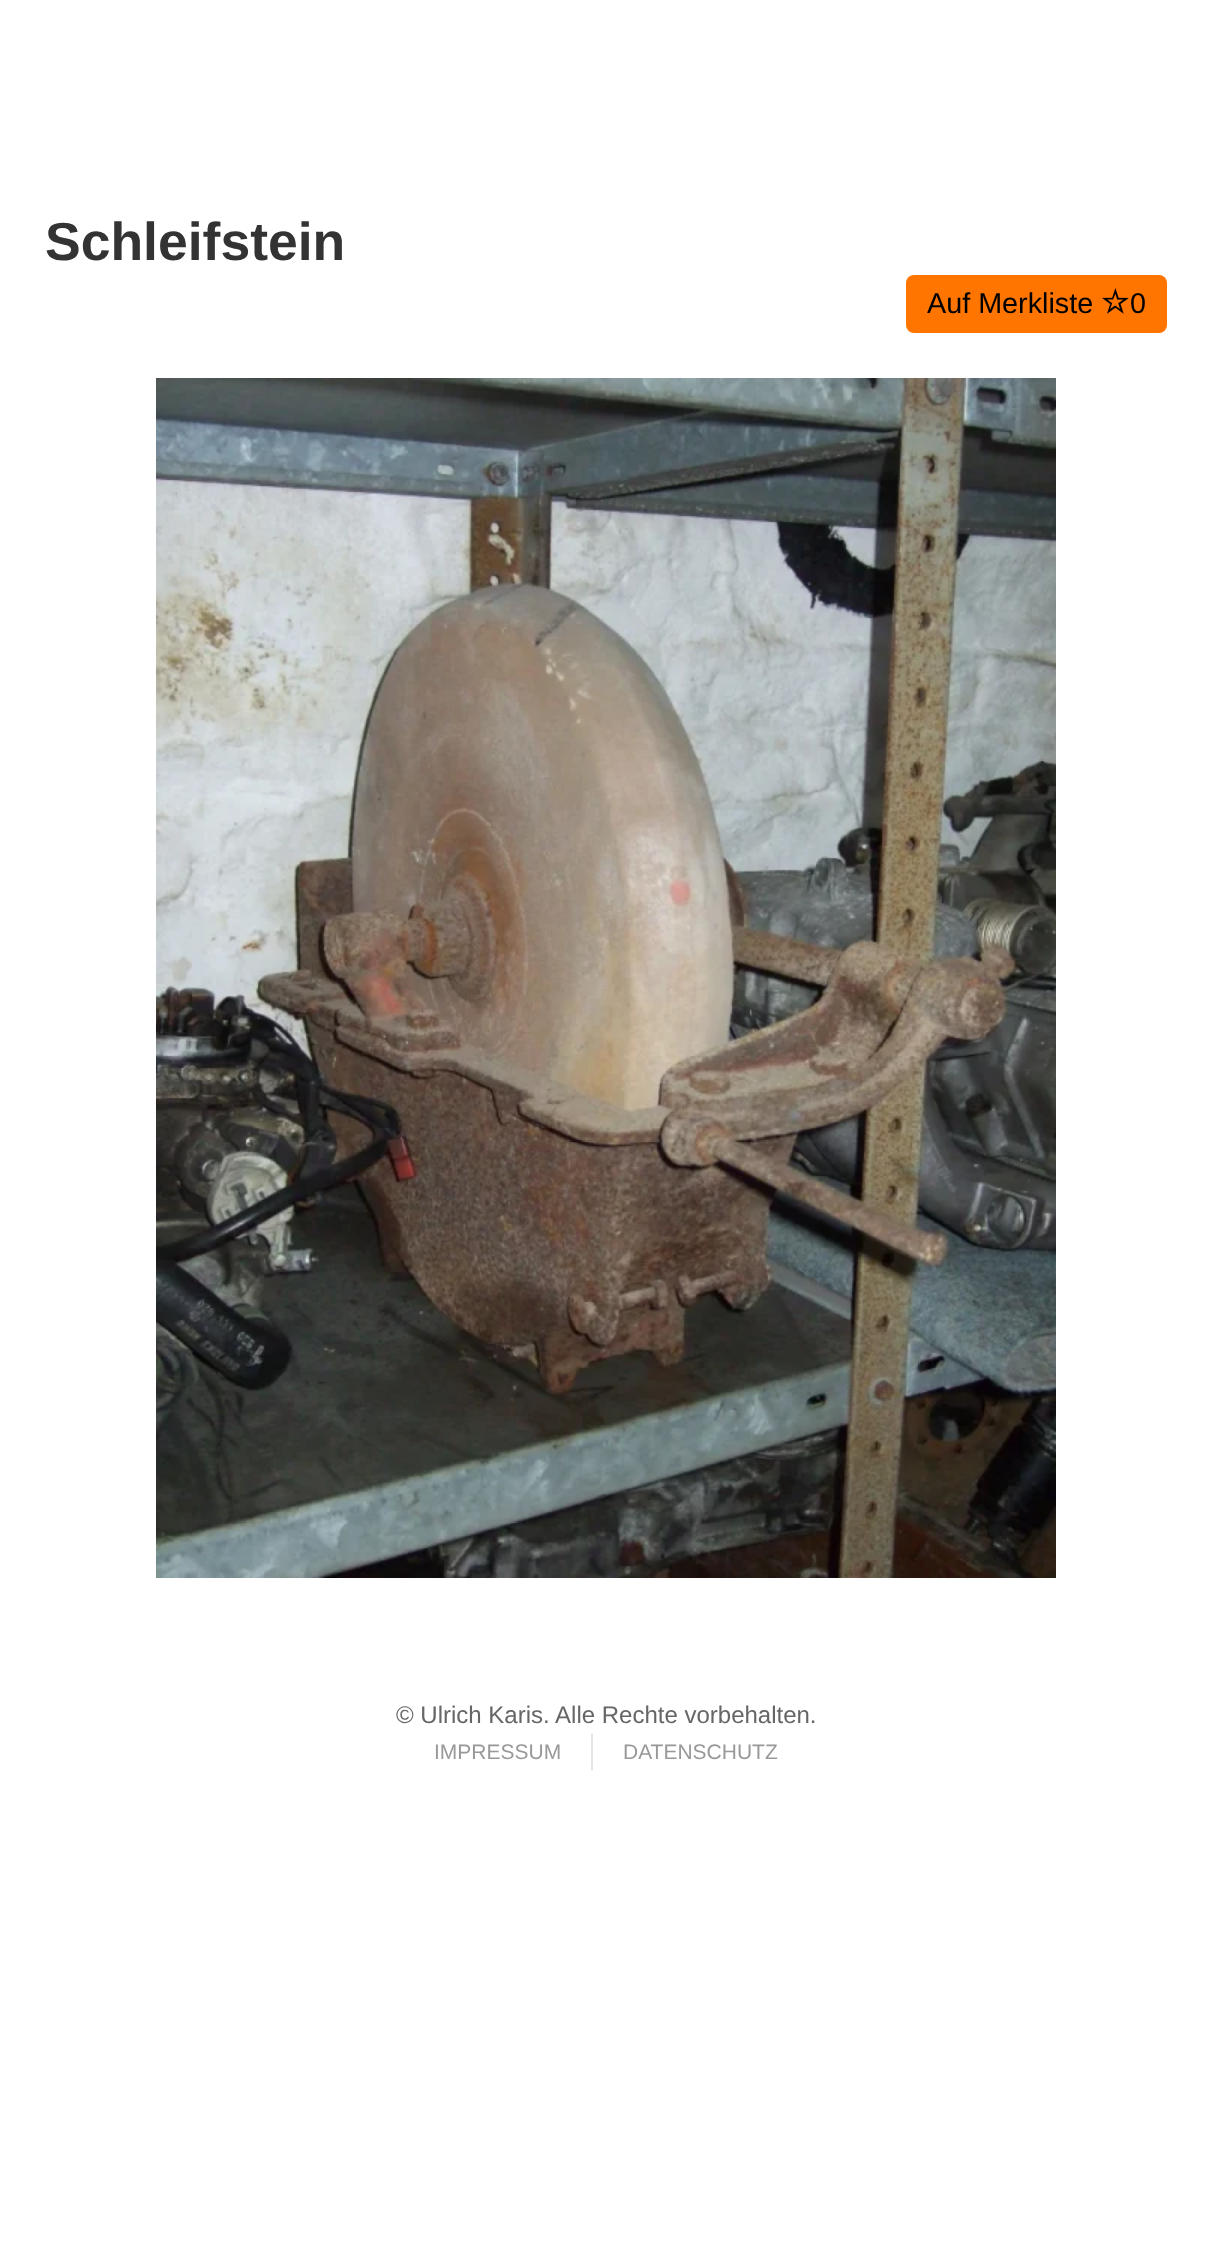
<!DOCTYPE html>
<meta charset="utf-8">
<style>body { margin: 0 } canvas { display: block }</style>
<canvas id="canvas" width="1211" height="2264"></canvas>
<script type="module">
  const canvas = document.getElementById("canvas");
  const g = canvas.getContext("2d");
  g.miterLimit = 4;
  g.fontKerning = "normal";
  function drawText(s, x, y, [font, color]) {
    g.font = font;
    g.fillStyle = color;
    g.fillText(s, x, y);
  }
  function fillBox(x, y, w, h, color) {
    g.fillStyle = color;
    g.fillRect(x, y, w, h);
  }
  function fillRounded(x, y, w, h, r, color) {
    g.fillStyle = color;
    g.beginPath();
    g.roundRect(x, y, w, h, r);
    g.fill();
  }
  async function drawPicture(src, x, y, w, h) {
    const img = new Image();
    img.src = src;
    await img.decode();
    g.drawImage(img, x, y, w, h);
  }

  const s1 = ["bold 53.5px Liberation Sans", "#333333"];
  const s2 = ["28.75px Liberation Sans", "#000000"];
  const s3 = ["24px Liberation Sans", "#666666"];
  const s4 = ["21px Liberation Sans", "#999999"];

  fillBox(0, 0, 1211, 2264, "#FFFFFF");
  drawText("Schleifstein", 45, 260, s1);
  fillRounded(906, 275, 261, 58, 8, "#FF7500");
  drawText("Auf Merkliste", 927, 313, s2);
  await drawPicture("pic1.png", 1102, 288, 27, 26);
  drawText("0", 1130, 313, s2);
  await drawPicture("pic2.png", 156, 378, 900, 1200);
  drawText("© Ulrich Karis. Alle Rechte vorbehalten.", 396, 1723, s3);
  drawText("IMPRESSUM", 434, 1759, s4);
  fillBox(591, 1734, 2, 36, "#E5E5E5");
  drawText("DATENSCHUTZ", 623, 1759, s4);
</script>
